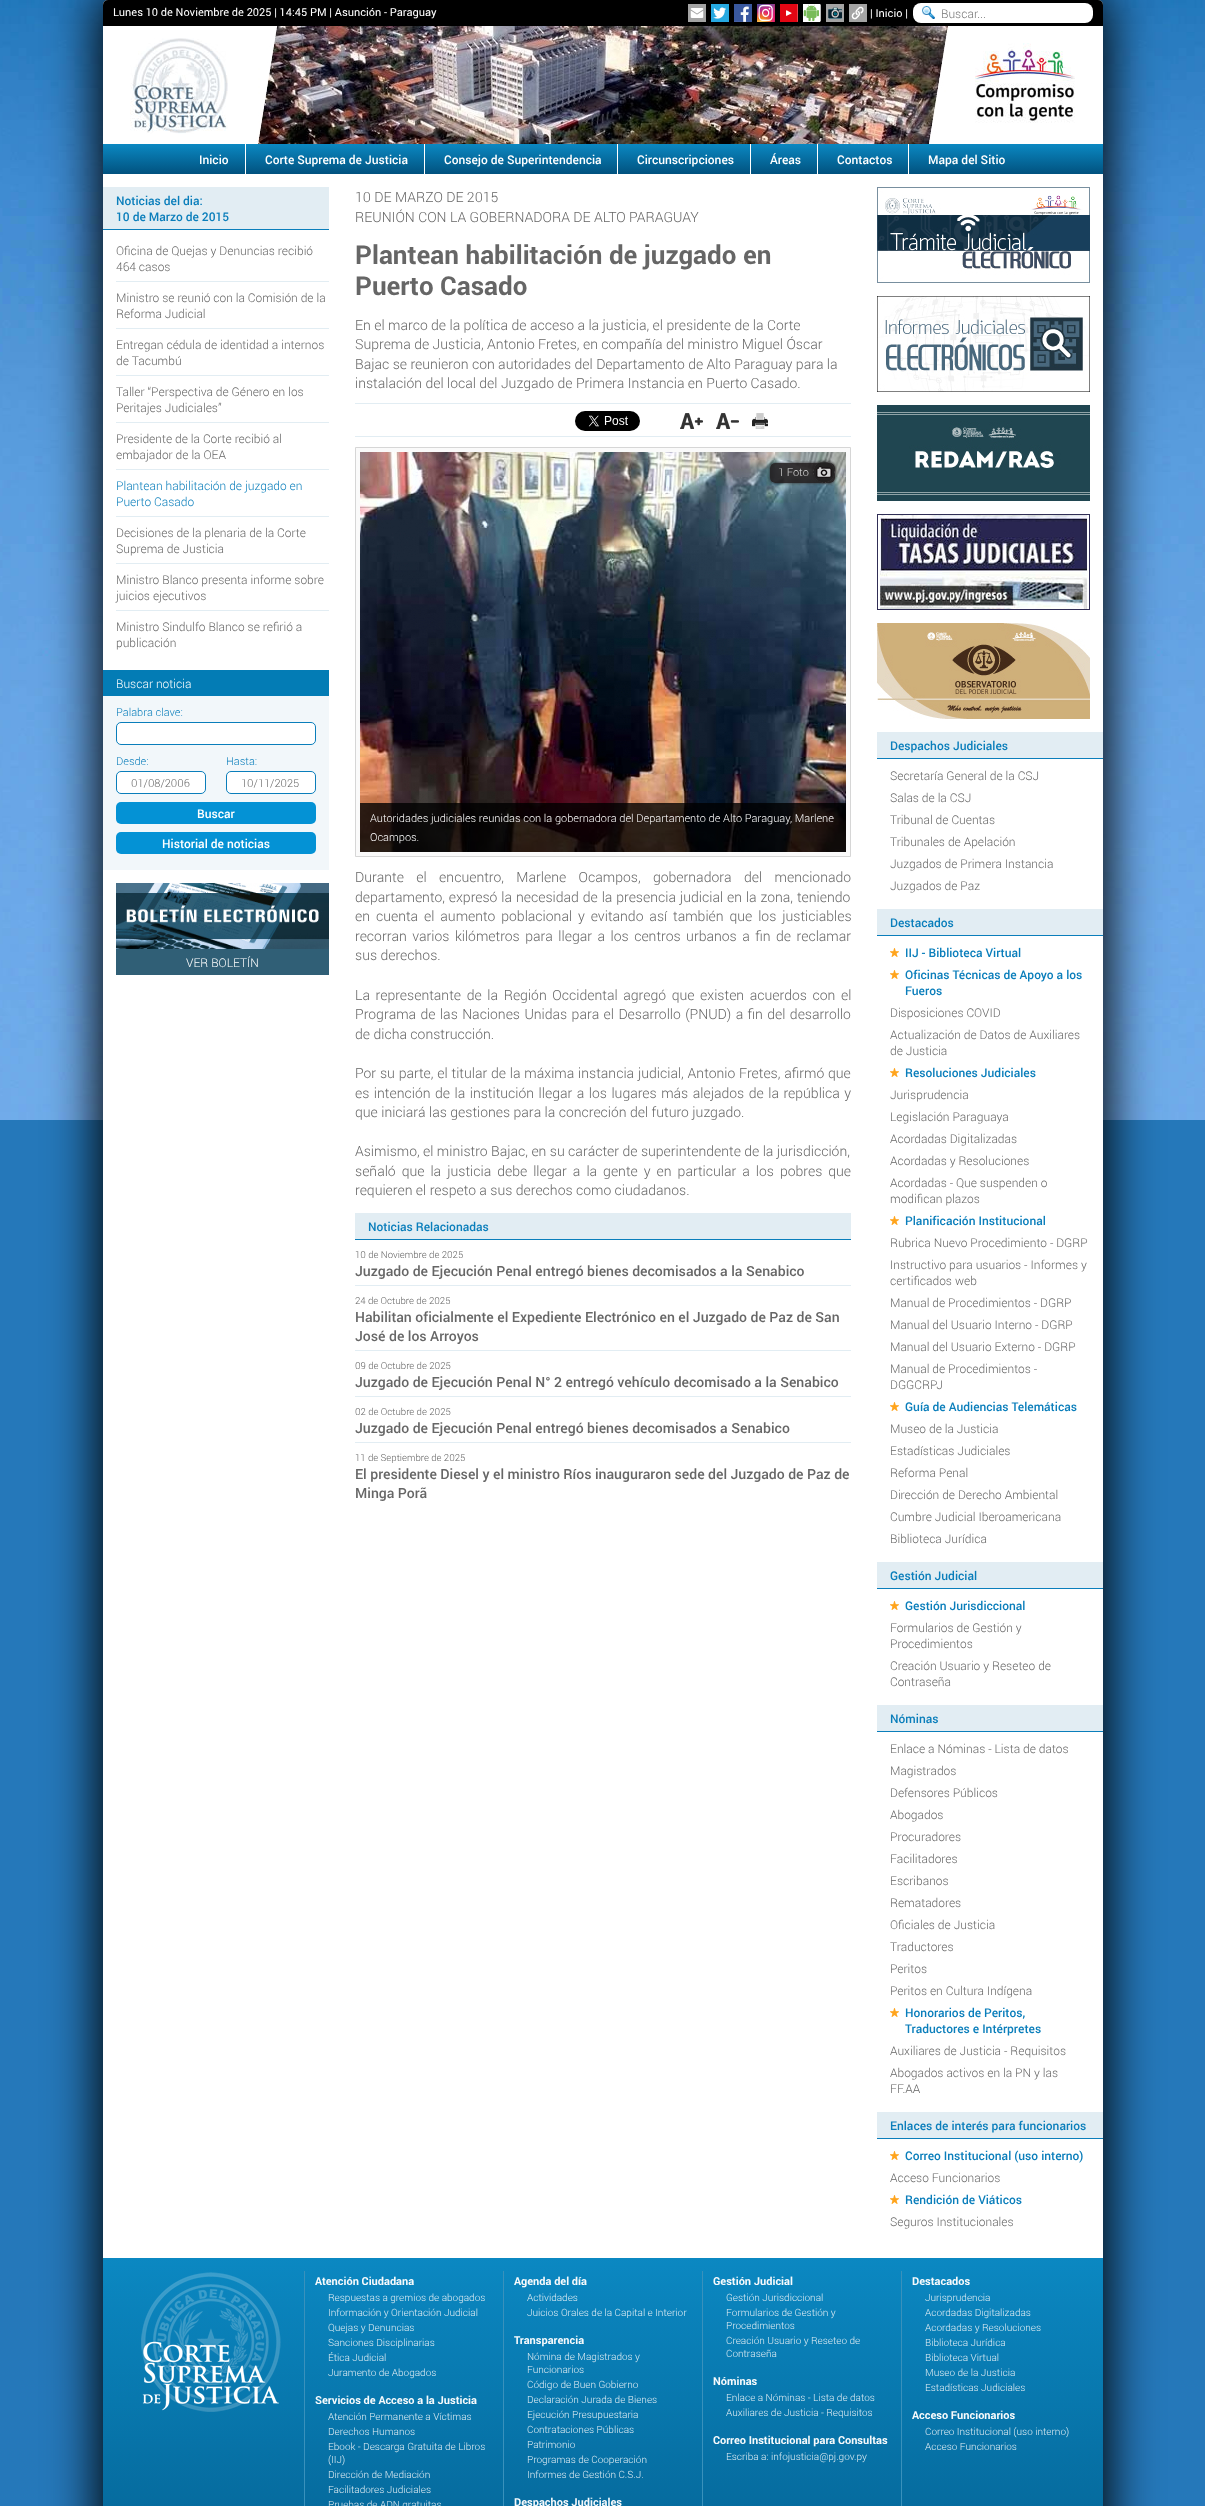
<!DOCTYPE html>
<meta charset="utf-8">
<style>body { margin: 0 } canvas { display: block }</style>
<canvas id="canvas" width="1205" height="2506"></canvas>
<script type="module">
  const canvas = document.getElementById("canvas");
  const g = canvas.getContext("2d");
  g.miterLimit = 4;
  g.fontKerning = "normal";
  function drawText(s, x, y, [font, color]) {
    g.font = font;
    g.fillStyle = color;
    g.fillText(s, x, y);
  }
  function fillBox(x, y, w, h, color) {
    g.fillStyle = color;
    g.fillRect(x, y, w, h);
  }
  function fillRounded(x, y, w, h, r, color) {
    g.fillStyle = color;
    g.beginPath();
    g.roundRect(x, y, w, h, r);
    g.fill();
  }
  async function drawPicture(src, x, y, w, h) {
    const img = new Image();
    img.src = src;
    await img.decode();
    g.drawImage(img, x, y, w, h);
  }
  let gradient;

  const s1 = ["11px Roboto", "#FFFFFF"];
  const s2 = ["300 12px Roboto", "#757575"];
  const s3 = ["500 12px Roboto", "#FFFFFF"];
  const s4 = ["500 12px Roboto", "#0A7EBB"];
  const s5 = ["300 12px Roboto", "#666666"];
  const s6 = ["300 12px Roboto", "#0A7EBB"];
  const s7 = ["300 12px Roboto", "#FFFFFF"];
  const s8 = ["300 11px Roboto", "#0A7EBB"];
  const s9 = ["300 11px Roboto", "#666666"];
  const s10 = ["300 14px Roboto", "#666666"];
  const s11 = ["bold 26px Roboto", "#666666"];
  const s12 = ["300 11px Roboto", "#DBDBDB"];
  const s13 = ["300 11px Roboto", "#FFFFFF"];
  const s14 = ["300 9.6px Roboto", "#666666"];
  const s15 = ["500 14px Roboto", "#666666"];
  const s16 = ["bold 11px Roboto", "#F7FAFC"];
  const s17 = ["300 10px Roboto", "#DFECF3"];

  fillBox(0, 0, 1205, 2506, "#2578BA");
  await drawPicture("pic1.png", 0, 0, 1205, 1120);
  g.fillStyle = "#000000";
  g.filter = "blur(25px)";
  g.beginPath();
  g.roundRect(98, -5, 1010, 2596, 10);
  g.fill();
  g.filter = "none";
  fillRounded(103, 0, 1000, 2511, 5, "#FFFFFF");
  g.fillStyle = "#000000";
  g.beginPath();
  g.roundRect(103, 0, 1000, 26, [5, 5, 0, 0]);
  g.fill();
  drawText("Lunes 10 de Noviembre de 2025 | 14:45 PM | Asunción - Paraguay", 113, 16, s1);
  await drawPicture("pic2.png", 688, 4, 18, 18);
  await drawPicture("pic3.png", 711, 4, 18, 18);
  await drawPicture("pic4.png", 734, 4, 18, 18);
  await drawPicture("pic5.png", 757, 4, 18, 18);
  await drawPicture("pic6.png", 780, 4, 18, 18);
  await drawPicture("pic7.png", 803, 4, 18, 18);
  await drawPicture("pic8.png", 826, 4, 18, 18);
  await drawPicture("pic9.png", 849, 4, 18, 18);
  drawText("| Inicio |", 870, 17, s1);
  fillRounded(913, 3, 180, 20, 8, "#FFFFFF");
  await drawPicture("pic10.png", 922, 6, 13, 13);
  drawText("Buscar...", 941, 18, s2);
  await drawPicture("pic11.png", 130, 38, 98, 96);
  await drawPicture("pic12.png", 258, 26, 690, 118);
  await drawPicture("pic13.png", 975, 43, 100, 80);
  gradient = g.createLinearGradient(603, 144, 603, 174);
  gradient.addColorStop(0, "#0B88C2");
  gradient.addColorStop(1, "#01527F");
  g.fillStyle = gradient;
  g.fillRect(103, 144, 1000, 30);
  fillBox(245, 144, 1, 30, "#FFFFFF");
  drawText("Inicio", 199, 164, s3);
  fillBox(424, 144, 1, 30, "#FFFFFF");
  drawText("Corte Suprema de Justicia", 265, 164, s3);
  fillBox(617, 144, 1, 30, "#FFFFFF");
  drawText("Consejo de Superintendencia", 444, 164, s3);
  fillBox(750, 144, 1, 30, "#FFFFFF");
  drawText("Circunscripciones", 637, 164, s3);
  fillBox(817, 144, 1, 30, "#FFFFFF");
  drawText("Áreas", 770, 164, s3);
  fillBox(908, 144, 1, 30, "#FFFFFF");
  drawText("Contactos", 837, 164, s3);
  drawText("Mapa del Sitio", 928, 164, s3);
  fillBox(103, 187, 226, 42, "#E2EDF3");
  fillBox(103, 229, 226, 1, "#0A7EBB");
  drawText("Noticias del dia:", 116, 205, s4);
  drawText("10 de Marzo de 2015", 116, 221, s4);
  fillBox(116, 281, 213, 1, "#E2EDF3");
  drawText("Oficina de Quejas y Denuncias recibió", 116, 255, s5);
  drawText("464 casos", 116, 271, s5);
  fillBox(116, 328, 213, 1, "#E2EDF3");
  drawText("Ministro se reunió con la Comisión de la", 116, 302, s5);
  drawText("Reforma Judicial", 116, 318, s5);
  fillBox(116, 375, 213, 1, "#E2EDF3");
  drawText("Entregan cédula de identidad a internos", 116, 349, s5);
  drawText("de Tacumbú", 116, 365, s5);
  fillBox(116, 422, 213, 1, "#E2EDF3");
  drawText("Taller “Perspectiva de Género en los", 116, 396, s5);
  drawText("Peritajes Judiciales”", 116, 412, s5);
  fillBox(116, 469, 213, 1, "#E2EDF3");
  drawText("Presidente de la Corte recibió al", 116, 443, s5);
  drawText("embajador de la OEA", 116, 459, s5);
  fillBox(116, 516, 213, 1, "#E2EDF3");
  drawText("Plantean habilitación de juzgado en", 116, 490, s6);
  drawText("Puerto Casado", 116, 506, s6);
  fillBox(116, 563, 213, 1, "#E2EDF3");
  drawText("Decisiones de la plenaria de la Corte", 116, 537, s5);
  drawText("Suprema de Justicia", 116, 553, s5);
  fillBox(116, 610, 213, 1, "#E2EDF3");
  drawText("Ministro Blanco presenta informe sobre", 116, 584, s5);
  drawText("juicios ejecutivos", 116, 600, s5);
  drawText("Ministro Sindulfo Blanco se refirió a", 116, 631, s5);
  drawText("publicación", 116, 647, s5);
  fillBox(103, 696, 226, 174, "#F2F7FA");
  fillBox(103, 670, 226, 26, "#037CB5");
  drawText("Buscar noticia", 116, 688, s7);
  drawText("Palabra clave:", 116, 716, s8);
  g.fillStyle = "#FFFFFF";
  g.beginPath();
  g.roundRect(116.5, 722.5, 199, 22, 4.5);
  g.fill();
  g.strokeStyle = "#0A7EBB";
  g.stroke();
  drawText("Desde:", 116, 765, s8);
  g.fillStyle = "#FFFFFF";
  g.beginPath();
  g.roundRect(116.5, 771.5, 89, 22, 4.5);
  g.fill();
  g.stroke();
  drawText("01/08/2006", 131, 787, s9);
  drawText("Hasta:", 226, 765, s8);
  g.fillStyle = "#FFFFFF";
  g.beginPath();
  g.roundRect(226.5, 771.5, 89, 22, 4.5);
  g.fill();
  g.stroke();
  drawText("10/11/2025", 241, 787, s9);
  fillRounded(116, 802, 200, 22, 5, "#0492D5");
  drawText("Buscar", 197, 818, s3);
  fillRounded(116, 832, 200, 22, 5, "#0492D5");
  drawText("Historial de noticias", 162, 848, s3);
  await drawPicture("pic14.png", 116, 883, 213, 66);
  fillBox(116, 949, 213, 26, "#305F76");
  drawText("VER BOLETÍN", 186, 967, s7);
  drawText("10 DE MARZO DE 2015", 355, 202, s10);
  drawText("REUNIÓN CON LA GOBERNADORA DE ALTO PARAGUAY", 355, 222, s10);
  drawText("Plantean habilitación de juzgado en", 355, 264, s11);
  drawText("Puerto Casado", 355, 295, s11);
  drawText("En el marco de la política de acceso a la justicia, el presidente de la Corte", 355, 330, s10);
  drawText("Suprema de Justicia, Antonio Fretes, en compañía del ministro Miguel Óscar", 355, 349, s10);
  drawText("Bajac se reunieron con autoridades del Departamento de Alto Paraguay para la", 355, 369, s10);
  drawText("instalación del local del Juzgado de Primera Instancia en Puerto Casado.", 355, 388, s10);
  fillBox(355, 403, 496, 1, "#E2EDF3");
  fillBox(355, 436, 496, 1, "#E2EDF3");
  await drawPicture("pic15.png", 575, 411, 65, 20);
  await drawPicture("pic16.png", 680, 413, 23, 16);
  await drawPicture("pic17.png", 716, 413, 23, 16);
  await drawPicture("pic18.png", 752, 413, 16, 16);
  g.fillStyle = "#FAFAFA";
  g.beginPath();
  g.rect(355.5, 447.5, 495, 409);
  g.fill();
  g.strokeStyle = "#D6D6D6";
  g.stroke();
  await drawPicture("pic19.png", 360, 452, 486, 400);
  g.save();
  g.beginPath();
  g.moveTo(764, 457);
  g.lineTo(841, 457);
  g.lineTo(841, 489);
  g.lineTo(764, 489);
  g.closePath();
  g.moveTo(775, 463);
  g.lineTo(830, 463);
  g.bezierCurveTo(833, 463, 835, 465, 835, 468);
  g.lineTo(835, 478);
  g.bezierCurveTo(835, 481, 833, 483, 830, 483);
  g.lineTo(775, 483);
  g.bezierCurveTo(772, 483, 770, 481, 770, 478);
  g.lineTo(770, 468);
  g.bezierCurveTo(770, 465, 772, 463, 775, 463);
  g.closePath();
  g.clip("evenodd");
  g.fillStyle = "rgba(35, 31, 32, 0.9)";
  g.filter = "blur(1.5px)";
  g.beginPath();
  g.roundRect(770, 463, 65, 20, 5);
  g.fill();
  g.filter = "none";
  g.restore();
  fillRounded(770, 463, 65, 20, 5, "rgba(35, 31, 32, 0.9)");
  drawText("1 Foto", 778, 476, s12);
  g.save();
  g.beginPath();
  g.moveTo(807, 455);
  g.lineTo(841, 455);
  g.lineTo(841, 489);
  g.lineTo(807, 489);
  g.closePath();
  g.moveTo(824, 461);
  g.bezierCurveTo(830, 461, 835, 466, 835, 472);
  g.bezierCurveTo(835, 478, 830, 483, 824, 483);
  g.bezierCurveTo(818, 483, 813, 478, 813, 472);
  g.bezierCurveTo(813, 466, 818, 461, 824, 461);
  g.closePath();
  g.clip("evenodd");
  g.fillStyle = "rgba(35, 31, 32, 0.81)";
  g.filter = "blur(1.5px)";
  g.beginPath();
  g.roundRect(813, 461, 22, 22, 11);
  g.fill();
  g.filter = "none";
  g.restore();
  await drawPicture("pic20.png", 813, 461, 22, 22);
  fillBox(360, 803, 486, 49, "rgba(0, 0, 0, 0.8)");
  drawText("Autoridades judiciales reunidas con la gobernadora del Departamento de Alto Paraguay, Marlene", 370, 822, s13);
  drawText("Ocampos.", 370, 841, s13);
  g.wordSpacing = "9px";
  drawText("Durante el encuentro, Marlene Ocampos, gobernadora del mencionado", 355, 882, s10);
  g.wordSpacing = "0.5px";
  drawText("departamento, expresó la necesidad de la presencia judicial en la zona, teniendo", 355, 902, s10);
  g.wordSpacing = "2.5px";
  drawText("en cuenta el aumento poblacional y evitando así también que los justiciables", 355, 921, s10);
  g.wordSpacing = "2.1px";
  drawText("recorran varios kilómetros para llegar a los centros urbanos a fin de reclamar", 355, 941, s10);
  g.wordSpacing = "0px";
  drawText("sus derechos.", 355, 960, s10);
  g.wordSpacing = "2.25px";
  drawText("La representante de la Región Occidental agregó que existen acuerdos con el", 355, 1000, s10);
  g.wordSpacing = "1px";
  drawText("Programa de las Naciones Unidas para el Desarrollo (PNUD) a fin del desarrollo", 355, 1019, s10);
  g.wordSpacing = "0px";
  drawText("de dicha construcción.", 355, 1039, s10);
  g.wordSpacing = "0.4px";
  drawText("Por su parte, el titular de la máxima instancia judicial, Antonio Fretes, afirmó que", 355, 1078, s10);
  g.wordSpacing = "1.1px";
  drawText("es intención de la institución llegar a los lugares más alejados de la república y", 355, 1098, s10);
  g.wordSpacing = "0px";
  drawText("que iniciará las gestiones para la concreción del futuro juzgado.", 355, 1117, s10);
  drawText("Asimismo, el ministro Bajac, en su carácter de superintendente de la jurisdicción,", 355, 1156, s10);
  g.wordSpacing = "2.6px";
  drawText("señaló que la justicia debe llegar a la gente y en particular a los pobres que", 355, 1176, s10);
  g.wordSpacing = "0px";
  drawText("requieren el respeto a sus derechos como ciudadanos.", 355, 1195, s10);
  fillBox(355, 1213, 496, 26, "#E2EDF3");
  fillBox(355, 1239, 496, 1, "#0A7EBB");
  drawText("Noticias Relacionadas", 368, 1231, s4);
  fillBox(355, 1285, 496, 1, "#E2EDF3");
  drawText("10 de Noviembre de 2025", 355, 1258, s14);
  drawText("Juzgado de Ejecución Penal entregó bienes decomisados a la Senabico", 355, 1276, s15);
  fillBox(355, 1350, 496, 1, "#E2EDF3");
  drawText("24 de Octubre de 2025", 355, 1304, s14);
  drawText("Habilitan oficialmente el Expediente Electrónico en el Juzgado de Paz de San", 355, 1322, s15);
  drawText("José de los Arroyos", 355, 1341, s15);
  fillBox(355, 1396, 496, 1, "#E2EDF3");
  drawText("09 de Octubre de 2025", 355, 1369, s14);
  drawText("Juzgado de Ejecución Penal N° 2 entregó vehículo decomisado a la Senabico", 355, 1387, s15);
  fillBox(355, 1442, 496, 1, "#E2EDF3");
  drawText("02 de Octubre de 2025", 355, 1415, s14);
  drawText("Juzgado de Ejecución Penal entregó bienes decomisados a Senabico", 355, 1433, s15);
  drawText("11 de Septiembre de 2025", 355, 1461, s14);
  drawText("El presidente Diesel y el ministro Ríos inauguraron sede del Juzgado de Paz de", 355, 1479, s15);
  drawText("Minga Porã", 355, 1498, s15);
  await drawPicture("pic21.png", 877, 187, 213, 96);
  await drawPicture("pic22.png", 877, 296, 213, 96);
  await drawPicture("pic23.png", 877, 405, 213, 96);
  await drawPicture("pic24.png", 877, 514, 213, 96);
  await drawPicture("pic25.png", 877, 623, 213, 96);
  fillBox(877, 732, 226, 26, "#E2EDF3");
  fillBox(877, 758, 226, 1, "#0A7EBB");
  drawText("Despachos Judiciales", 890, 750, s4);
  drawText("Secretaría General de la CSJ", 890, 780, s5);
  drawText("Salas de la CSJ", 890, 802, s5);
  drawText("Tribunal de Cuentas", 890, 824, s5);
  drawText("Tribunales de Apelación", 890, 846, s5);
  drawText("Juzgados de Primera Instancia", 890, 868, s5);
  drawText("Juzgados de Paz", 890, 890, s5);
  fillBox(877, 909, 226, 26, "#E2EDF3");
  fillBox(877, 935, 226, 1, "#0A7EBB");
  drawText("Destacados", 890, 927, s4);
  await drawPicture("pic26.png", 890, 948, 9, 9);
  drawText("IIJ - Biblioteca Virtual", 905, 957, s4);
  await drawPicture("pic26.png", 890, 970, 9, 9);
  drawText("Oficinas Técnicas de Apoyo a los", 905, 979, s4);
  drawText("Fueros", 905, 995, s4);
  drawText("Disposiciones COVID", 890, 1017, s5);
  drawText("Actualización de Datos de Auxiliares", 890, 1039, s5);
  drawText("de Justicia", 890, 1055, s5);
  await drawPicture("pic26.png", 890, 1068, 9, 9);
  drawText("Resoluciones Judiciales", 905, 1077, s4);
  drawText("Jurisprudencia", 890, 1099, s5);
  drawText("Legislación Paraguaya", 890, 1121, s5);
  drawText("Acordadas Digitalizadas", 890, 1143, s5);
  drawText("Acordadas y Resoluciones", 890, 1165, s5);
  drawText("Acordadas - Que suspenden o", 890, 1187, s5);
  drawText("modifican plazos", 890, 1203, s5);
  await drawPicture("pic26.png", 890, 1216, 9, 9);
  drawText("Planificación Institucional", 905, 1225, s4);
  drawText("Rubrica Nuevo Procedimiento - DGRP", 890, 1247, s5);
  drawText("Instructivo para usuarios - Informes y", 890, 1269, s5);
  drawText("certificados web", 890, 1285, s5);
  drawText("Manual de Procedimientos - DGRP", 890, 1307, s5);
  drawText("Manual del Usuario Interno - DGRP", 890, 1329, s5);
  drawText("Manual del Usuario Externo - DGRP", 890, 1351, s5);
  drawText("Manual de Procedimientos -", 890, 1373, s5);
  drawText("DGGCRPJ", 890, 1389, s5);
  await drawPicture("pic26.png", 890, 1402, 9, 9);
  drawText("Guía de Audiencias Telemáticas", 905, 1411, s4);
  drawText("Museo de la Justicia", 890, 1433, s5);
  drawText("Estadísticas Judiciales", 890, 1455, s5);
  drawText("Reforma Penal", 890, 1477, s5);
  drawText("Dirección de Derecho Ambiental", 890, 1499, s5);
  drawText("Cumbre Judicial Iberoamericana", 890, 1521, s5);
  drawText("Biblioteca Jurídica", 890, 1543, s5);
  fillBox(877, 1562, 226, 26, "#E2EDF3");
  fillBox(877, 1588, 226, 1, "#0A7EBB");
  drawText("Gestión Judicial", 890, 1580, s4);
  await drawPicture("pic26.png", 890, 1601, 9, 9);
  drawText("Gestión Jurisdiccional", 905, 1610, s4);
  drawText("Formularios de Gestión y", 890, 1632, s5);
  drawText("Procedimientos", 890, 1648, s5);
  drawText("Creación Usuario y Reseteo de", 890, 1670, s5);
  drawText("Contraseña", 890, 1686, s5);
  fillBox(877, 1705, 226, 26, "#E2EDF3");
  fillBox(877, 1731, 226, 1, "#0A7EBB");
  drawText("Nóminas", 890, 1723, s4);
  drawText("Enlace a Nóminas - Lista de datos", 890, 1753, s5);
  drawText("Magistrados", 890, 1775, s5);
  drawText("Defensores Públicos", 890, 1797, s5);
  drawText("Abogados", 890, 1819, s5);
  drawText("Procuradores", 890, 1841, s5);
  drawText("Facilitadores", 890, 1863, s5);
  drawText("Escribanos", 890, 1885, s5);
  drawText("Rematadores", 890, 1907, s5);
  drawText("Oficiales de Justicia", 890, 1929, s5);
  drawText("Traductores", 890, 1951, s5);
  drawText("Peritos", 890, 1973, s5);
  drawText("Peritos en Cultura Indígena", 890, 1995, s5);
  await drawPicture("pic26.png", 890, 2008, 9, 9);
  drawText("Honorarios de Peritos,", 905, 2017, s4);
  drawText("Traductores e Intérpretes", 905, 2033, s4);
  drawText("Auxiliares de Justicia - Requisitos", 890, 2055, s5);
  drawText("Abogados activos en la PN y las", 890, 2077, s5);
  drawText("FF.AA", 890, 2093, s5);
  fillBox(877, 2112, 226, 26, "#E2EDF3");
  fillBox(877, 2138, 226, 1, "#0A7EBB");
  drawText("Enlaces de interés para funcionarios", 890, 2130, s4);
  await drawPicture("pic26.png", 890, 2151, 9, 9);
  drawText("Correo Institucional (uso interno)", 905, 2160, s4);
  drawText("Acceso Funcionarios", 890, 2182, s5);
  await drawPicture("pic26.png", 890, 2195, 9, 9);
  drawText("Rendición de Viáticos", 905, 2204, s4);
  drawText("Seguros Institucionales", 890, 2226, s5);
  gradient = g.createLinearGradient(603, 2258, 603, 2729);
  gradient.addColorStop(0, "#0B88C2");
  gradient.addColorStop(1, "#01527F");
  g.fillStyle = gradient;
  g.fillRect(103, 2258, 1000, 248);
  fillBox(304, 2271, 1, 235, "#3991BC");
  await drawPicture("pic27.png", 141, 2272, 140, 140);
  fillBox(503, 2271, 1, 235, "#3991BC");
  drawText("Atención Ciudadana", 315, 2285, s16);
  drawText("Respuestas a gremios de abogados", 328, 2301, s17);
  drawText("Información y Orientación Judicial", 328, 2316, s17);
  drawText("Quejas y Denuncias", 328, 2331, s17);
  drawText("Sanciones Disciplinarias", 328, 2346, s17);
  drawText("Ética Judicial", 328, 2361, s17);
  drawText("Juramento de Abogados", 328, 2376, s17);
  drawText("Servicios de Acceso a la Justicia", 315, 2404, s16);
  drawText("Atención Permanente a Víctimas", 328, 2420, s17);
  drawText("Derechos Humanos", 328, 2435, s17);
  drawText("Ebook - Descarga Gratuita de Libros", 328, 2450, s17);
  drawText("(IIJ)", 328, 2463, s17);
  drawText("Dirección de Mediación", 328, 2478, s17);
  drawText("Facilitadores Judiciales", 328, 2493, s17);
  drawText("Pruebas de ADN gratuitas", 328, 2508, s17);
  fillBox(702, 2271, 1, 235, "#3991BC");
  drawText("Agenda del día", 514, 2285, s16);
  drawText("Actividades", 527, 2301, s17);
  drawText("Juicios Orales de la Capital e Interior", 527, 2316, s17);
  drawText("Transparencia", 514, 2344, s16);
  drawText("Nómina de Magistrados y", 527, 2360, s17);
  drawText("Funcionarios", 527, 2373, s17);
  drawText("Código de Buen Gobierno", 527, 2388, s17);
  drawText("Declaración Jurada de Bienes", 527, 2403, s17);
  drawText("Ejecución Presupuestaria", 527, 2418, s17);
  drawText("Contrataciones Públicas", 527, 2433, s17);
  drawText("Patrimonio", 527, 2448, s17);
  drawText("Programas de Cooperación", 527, 2463, s17);
  drawText("Informes de Gestión C.S.J.", 527, 2478, s17);
  drawText("Despachos Judiciales", 514, 2506, s16);
  fillBox(901, 2271, 1, 235, "#3991BC");
  drawText("Gestión Judicial", 713, 2285, s16);
  drawText("Gestión Jurisdiccional", 726, 2301, s17);
  drawText("Formularios de Gestión y", 726, 2316, s17);
  drawText("Procedimientos", 726, 2329, s17);
  drawText("Creación Usuario y Reseteo de", 726, 2344, s17);
  drawText("Contraseña", 726, 2357, s17);
  drawText("Nóminas", 713, 2385, s16);
  drawText("Enlace a Nóminas - Lista de datos", 726, 2401, s17);
  drawText("Auxiliares de Justicia - Requisitos", 726, 2416, s17);
  drawText("Correo Institucional para Consultas", 713, 2444, s16);
  drawText("Escriba a: infojusticia@pj.gov.py", 726, 2460, s17);
  drawText("Destacados", 912, 2285, s16);
  drawText("Jurisprudencia", 925, 2301, s17);
  drawText("Acordadas Digitalizadas", 925, 2316, s17);
  drawText("Acordadas y Resoluciones", 925, 2331, s17);
  drawText("Biblioteca Jurídica", 925, 2346, s17);
  drawText("Biblioteca Virtual", 925, 2361, s17);
  drawText("Museo de la Justicia", 925, 2376, s17);
  drawText("Estadísticas Judiciales", 925, 2391, s17);
  drawText("Acceso Funcionarios", 912, 2419, s16);
  drawText("Correo Institucional (uso interno)", 925, 2435, s17);
  drawText("Acceso Funcionarios", 925, 2450, s17);
</script>
